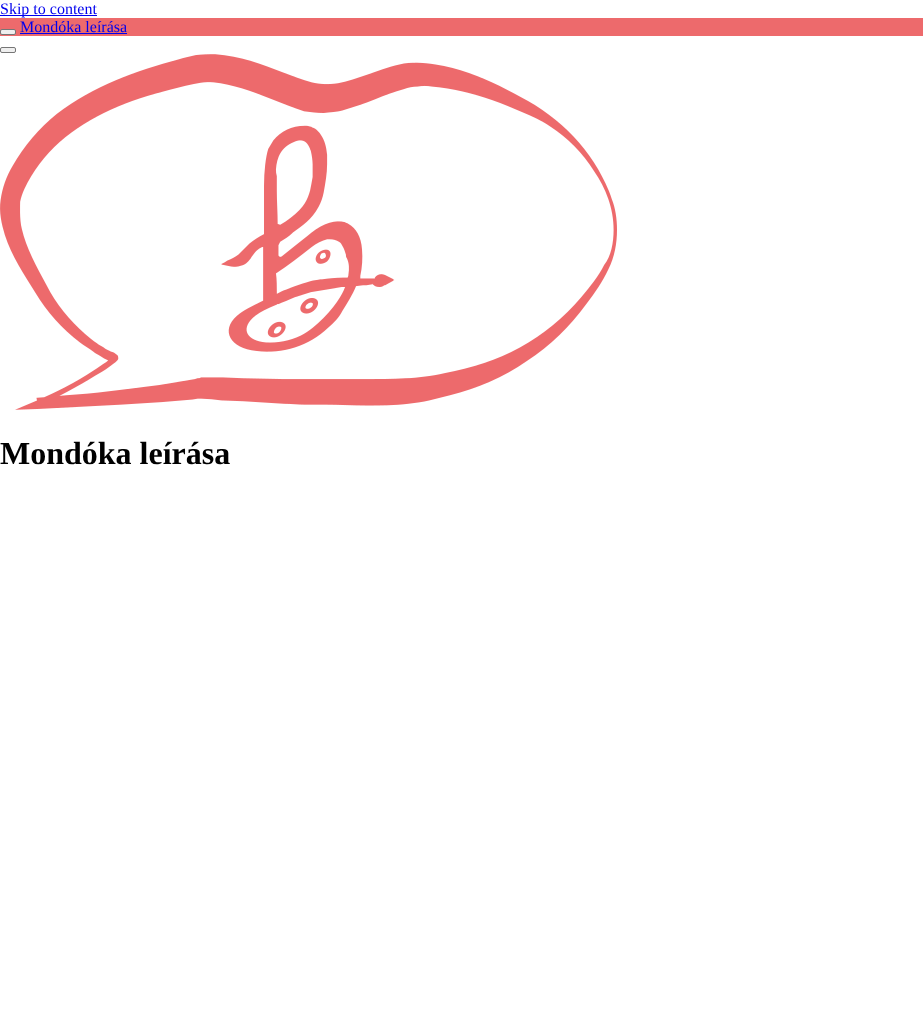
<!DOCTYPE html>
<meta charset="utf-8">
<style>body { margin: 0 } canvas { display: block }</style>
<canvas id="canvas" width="923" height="1022"></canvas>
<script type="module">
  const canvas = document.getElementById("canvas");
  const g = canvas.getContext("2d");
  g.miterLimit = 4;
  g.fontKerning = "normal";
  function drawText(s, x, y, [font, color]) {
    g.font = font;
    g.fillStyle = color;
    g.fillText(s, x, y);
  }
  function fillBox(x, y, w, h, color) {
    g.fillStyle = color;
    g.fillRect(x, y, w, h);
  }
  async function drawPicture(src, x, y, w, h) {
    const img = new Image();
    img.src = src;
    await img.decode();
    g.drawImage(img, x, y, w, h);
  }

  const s1 = ["16px Liberation Serif", "#0000EE"];
  const s2 = ["bold 32px Liberation Serif", "#000000"];

  fillBox(0, 0, 923, 1022, "#FFFFFF");
  fillBox(0, 15, 97, 1, "#0000EE");
  drawText("Skip to content", 0, 14, s1);
  fillBox(0, 18, 923, 18, "#ED6A6C");
  g.fillStyle = "#EFEFEF";
  g.beginPath();
  g.roundRect(0.5, 29.5, 15, 5, 1.5);
  g.fill();
  g.strokeStyle = "#767676";
  g.stroke();
  drawText("Mondóka leírása", 20, 32, s1);
  fillBox(20, 33, 107, 1, "#0000EE");
  g.fillStyle = "#EFEFEF";
  g.beginPath();
  g.roundRect(0.5, 47.5, 15, 5, 1.5);
  g.fill();
  g.stroke();
  await drawPicture("pic1.png", 0, 54, 617, 356);
  drawText("Mondóka leírása", 0, 464, s2);
</script>
